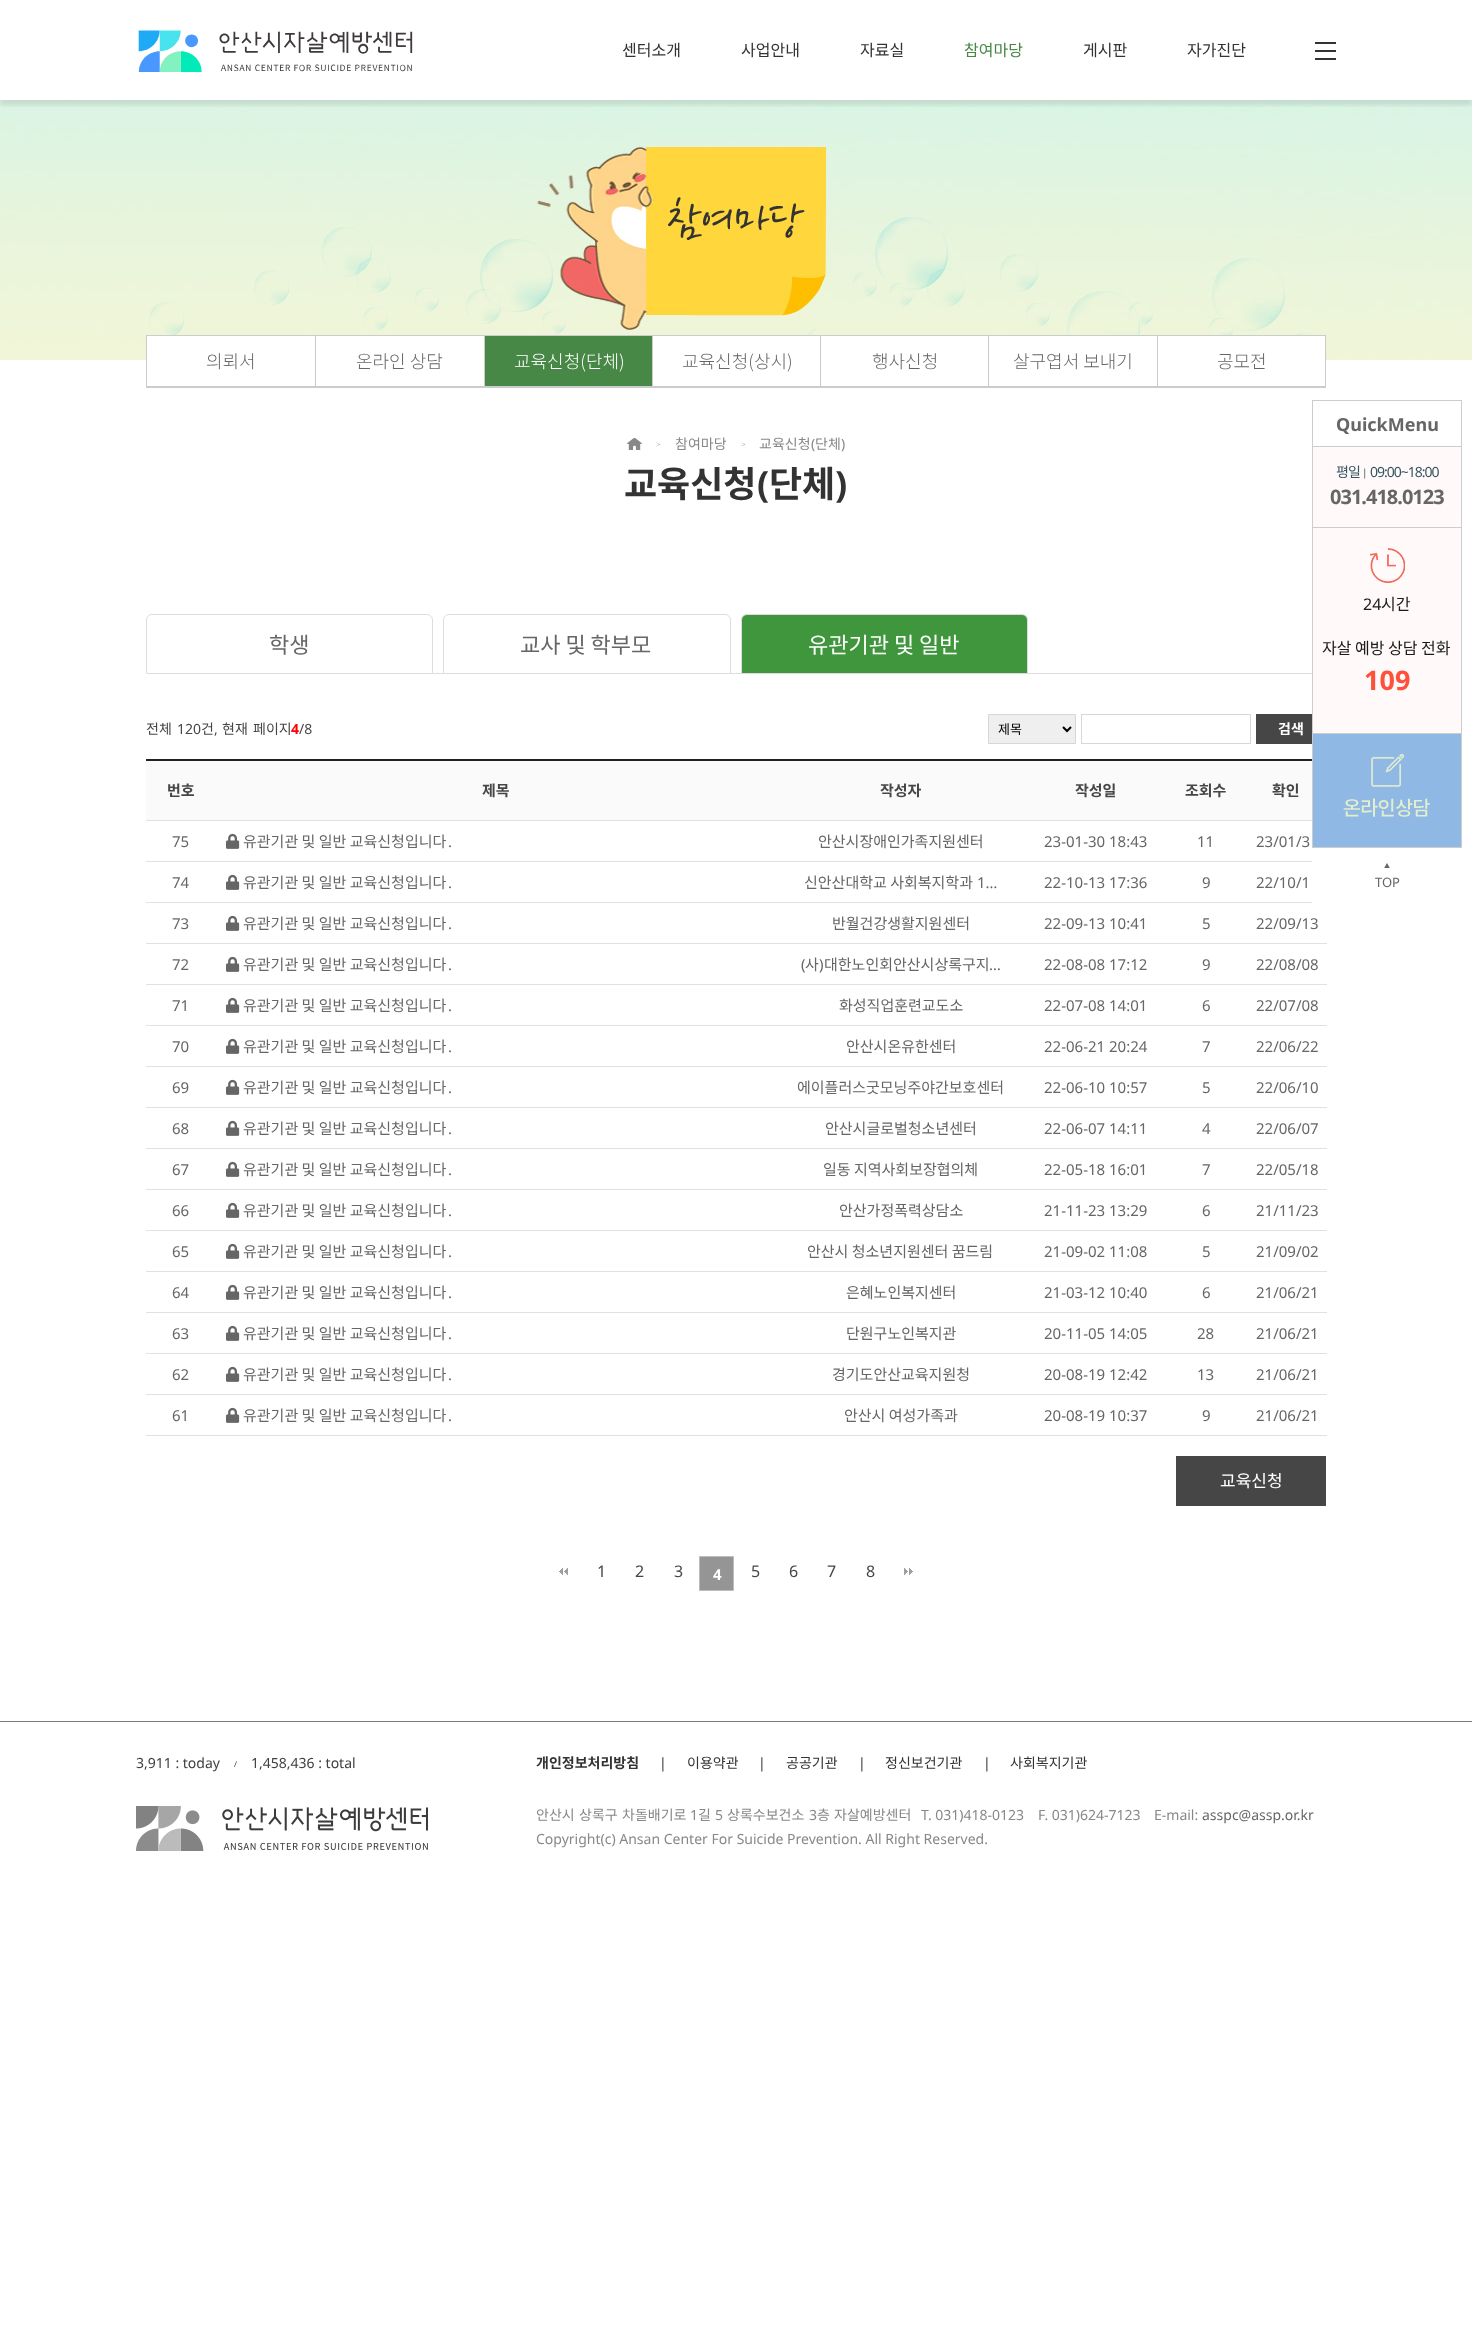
<!DOCTYPE html>
<meta charset="utf-8">
<style>body { margin: 0 } canvas { display: block }</style>
<canvas id="canvas" width="1472" height="2333"></canvas>
<script type="module">
  const canvas = document.getElementById("canvas");
  const g = canvas.getContext("2d");
  g.miterLimit = 4;
  g.fontKerning = "normal";
  function drawText(s, x, y, [font, color]) {
    g.font = font;
    g.fillStyle = color;
    g.fillText(s, x, y);
  }
  function fillBox(x, y, w, h, color) {
    g.fillStyle = color;
    g.fillRect(x, y, w, h);
  }
  async function drawPicture(src, x, y, w, h) {
    const img = new Image();
    img.src = src;
    await img.decode();
    g.drawImage(img, x, y, w, h);
  }

  const s1 = ["16px Noto Sans KR", "#333333"];
  const s2 = ["16px Noto Sans KR", "#478845"];
  const s3 = ["300 18px Noto Sans KR", "#666666"];
  const s4 = ["300 18px Noto Sans KR", "#FFFFFF"];
  const s5 = ["bold 18px Noto Sans", "#666666"];
  const s6 = ["14px Noto Sans KR", "#375561"];
  const s7 = ["10px Noto Sans", "#375561"];
  const s8 = ["14px Noto Sans", "#375561"];
  const s9 = ["bold 20px Noto Sans", "#666666"];
  const s10 = ["16px Noto Sans", "#1B1B1B"];
  const s11 = ["16px Noto Sans KR", "#1B1B1B"];
  const s12 = ["bold 27px Noto Sans", "#FF513A"];
  const s13 = ["6px Noto Sans KR", "#666666"];
  const s14 = ["13px Noto Sans", "#666666"];
  const s15 = ["14px Noto Sans", "#404040"];
  const s16 = ["8px Noto Sans", "#404040"];
  const s17 = ["bold 14px Noto Sans KR", "#333333"];
  const s18 = ["14px Noto Sans", "#333333"];
  const s19 = ["14px Noto Sans KR", "#333333"];
  const s20 = ["14px Noto Sans KR", "#888888"];
  const s21 = ["14px Noto Sans", "#888888"];
  const s22 = ["14px Noto Sans", "#666666"];
  const s23 = ["8px Liberation Serif", "#888888"];
  const s24 = ["bold 36px Noto Sans KR", "#333333"];
  const s25 = ["bold 36px Noto Sans", "#333333"];
  const s26 = ["22px Noto Sans KR", "#666666"];
  const s27 = ["22px Noto Sans KR", "#FFFFFF"];
  const s28 = ["14px Noto Sans KR", "#464646"];
  const s29 = ["14px Noto Sans", "#464646"];
  const s30 = ["bold 14px Noto Sans", "#FF0000"];
  const s31 = ["13px Noto Sans KR", "#000000"];
  const s32 = ["bold 14px Noto Sans KR", "#FFFFFF"];
  const s33 = ["bold 15px Noto Sans KR", "#464646"];
  const s34 = ["15px Noto Sans", "#666666"];
  const s35 = ["15px Noto Sans KR", "#666666"];
  const s36 = ["17px Noto Sans KR", "#FFFFFF"];
  const s37 = ["16px Noto Sans", "#464646"];
  const s38 = ["bold 15px Noto Sans", "#FFFFFF"];

  fillBox(0, 0, 1472, 2333, "#FFFFFF");
  await drawPicture("pic3.png", 0, 100, 1472, 260);
  g.save();
  g.beginPath();
  g.rect(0, 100, 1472, 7);
  g.clip();
  g.fillStyle = "rgba(0, 0, 0, 0.1)";
  g.filter = "blur(2.5px)";
  g.beginPath();
  g.rect(0, 5, 1472, 100);
  g.fill();
  g.filter = "none";
  g.restore();
  await drawPicture("pic1.png", 138, 30, 275, 42);
  drawText("센터소개", 622, 56, s1);
  drawText("사업안내", 741, 56, s1);
  drawText("자료실", 860, 56, s1);
  drawText("참여마당", 964, 56, s2);
  drawText("게시판", 1083, 56, s1);
  drawText("자가진단", 1187, 56, s1);
  await drawPicture("pic2.png", 1315, 42, 21, 18);
  await drawPicture("pic4.png", 668, 197, 137, 43);
  fillBox(147, 336, 1178, 24, "#FFFFFF");
  g.strokeStyle = "#CCCCCC";
  g.strokeRect(146.5, 335.5, 1179, 52);
  fillBox(147, 386, 1178, 1, "#CCCCCC");
  drawText("의뢰서", 206, 368, s3);
  fillBox(315, 336, 1, 51, "#CCCCCC");
  drawText("온라인 상담", 356, 368, s3);
  fillBox(484, 336, 1, 51, "#CCCCCC");
  fillBox(485, 336, 167, 50, "#488846");
  drawText("교육신청(단체)", 514, 368, s4);
  fillBox(652, 336, 1, 51, "#CCCCCC");
  drawText("교육신청(상시)", 682, 368, s3);
  fillBox(820, 336, 1, 51, "#CCCCCC");
  drawText("행사신청", 872, 368, s3);
  fillBox(988, 336, 1, 51, "#CCCCCC");
  drawText("살구엽서 보내기", 1013, 368, s3);
  fillBox(1157, 336, 1, 51, "#CCCCCC");
  drawText("공모전", 1217, 368, s3);
  fillBox(0, 1721, 1472, 1, "#7C7C7C");
  fillBox(1313, 447, 148, 286, "#FFF9FA");
  fillBox(1312, 400, 150, 1, "#CCCCCC");
  fillBox(1461, 401, 1, 447, "#CCCCCC");
  fillBox(1312, 446, 150, 1, "#CCCCCC");
  fillBox(1312, 401, 1, 46, "#CCCCCC");
  drawText("QuickMenu", 1336, 431, s5);
  fillBox(1312, 527, 150, 1, "#CCCCCC");
  fillBox(1312, 447, 1, 81, "#CCCCCC");
  g.letterSpacing = "-1px";
  drawText("평일", 1336, 477, s6);
  drawText("|", 1362, 476, s7);
  drawText("09:00~18:00", 1370, 477, s8);
  drawText("031.418.0123", 1330, 504, s9);
  fillBox(1312, 733, 150, 1, "#CCCCCC");
  fillBox(1312, 528, 1, 206, "#CCCCCC");
  await drawPicture("pic5.png", 1370, 548, 35, 35);
  g.letterSpacing = "0px";
  drawText("24", 1363, 610, s10);
  drawText("시간", 1381, 610, s11);
  drawText("자살 예방 상담 전화", 1322, 654, s11);
  drawText("109", 1364, 690, s12);
  fillBox(1313, 734, 148, 113, "#8FB9E4");
  fillBox(1312, 847, 150, 1, "#CCCCCC");
  fillBox(1312, 734, 1, 114, "#CCCCCC");
  await drawPicture("pic6.png", 1343, 754, 87, 63);
  drawText("▲", 1384, 868, s13);
  drawText("TOP", 1375, 887, s14);
  drawText("3,911 : today", 136, 1768, s15);
  drawText("/", 234, 1767, s16);
  drawText("1,458,436 : total", 251, 1768, s15);
  drawText("개인정보처리방침", 536, 1768, s17);
  drawText("|", 659, 1768, s18);
  drawText("이용약관", 687, 1768, s19);
  drawText("|", 758, 1768, s18);
  drawText("공공기관", 786, 1768, s19);
  drawText("|", 858, 1768, s18);
  drawText("정신보건기관", 885, 1768, s19);
  drawText("|", 983, 1768, s18);
  drawText("사회복지기관", 1010, 1768, s19);
  await drawPicture("pic7.png", 136, 1806, 292, 45);
  drawText("안산시", 536, 1820, s20);
  drawText("상록구", 579, 1820, s20);
  drawText("차돌배기로", 622, 1820, s20);
  drawText("1", 690, 1820, s21);
  drawText("길", 698, 1820, s20);
  drawText("5", 715, 1820, s21);
  drawText("상록수보건소", 727, 1820, s20);
  drawText("3", 809, 1820, s21);
  drawText("층", 817, 1820, s20);
  drawText("자살예방센터", 834, 1820, s20);
  drawText("T. 031)418-0123", 921, 1820, s21);
  drawText("F. 031)624-7123", 1038, 1820, s21);
  drawText("E-mail:", 1154, 1820, s21);
  drawText("asspc@assp.or.kr", 1202, 1820, s22);
  drawText("Copyright(c) Ansan Center For Suicide Prevention. All Right Reserved.", 536, 1844, s21);
  await drawPicture("pic8.png", 627, 438, 15, 12);
  drawText(">", 656, 447, s23);
  drawText("참여마당", 675, 449, s20);
  drawText(">", 741, 447, s23);
  drawText("교육신청", 759, 449, s20);
  drawText("(", 811, 449, s21);
  drawText("단체", 815, 449, s20);
  drawText(")", 841, 449, s21);
  drawText("교육신청", 624, 497, s24);
  drawText("(", 757, 497, s25);
  drawText("단체", 769, 497, s24);
  drawText(")", 835, 497, s25);
  g.beginPath();
  g.roundRect(146.5, 614.5, 286, 59, [5.5, 5.5, 0, 0]);
  g.strokeStyle = "#DDDDDD";
  g.stroke();
  drawText("학생", 269, 653, s26);
  g.beginPath();
  g.roundRect(443.5, 614.5, 287, 59, [5.5, 5.5, 0, 0]);
  g.stroke();
  drawText("교사 및 학부모", 520, 653, s26);
  g.fillStyle = "#3F963C";
  g.beginPath();
  g.roundRect(741.5, 614.5, 286, 59, [5.5, 5.5, 0, 0]);
  g.fill();
  g.stroke();
  drawText("유관기관 및 일반", 808, 653, s27);
  fillBox(433, 673, 879, 1, "#DDDDDD");
  drawText("전체", 146, 734, s28);
  drawText("120", 177, 734, s29);
  drawText("건", 201, 734, s28);
  drawText(",", 214, 734, s29);
  drawText("현재", 222, 734, s28);
  drawText("페이지", 253, 734, s28);
  drawText("4", 291, 734, s30);
  drawText("/8", 299, 734, s29);
  g.fillStyle = "#EFEFEF";
  g.beginPath();
  g.rect(988.5, 714.5, 87, 29);
  g.fill();
  g.strokeStyle = "#D7D7D7";
  g.stroke();
  g.beginPath();
  g.moveTo(1063, 727);
  g.lineTo(1067, 731);
  g.lineTo(1071, 727);
  g.strokeStyle = "#000000";
  g.lineWidth = 2;
  g.stroke();
  drawText("제목", 998, 734, s31);
  g.strokeStyle = "#D7D7D7";
  g.lineWidth = 1;
  g.strokeRect(1081.5, 714.5, 169, 29);
  fillBox(1256, 714, 56, 30, "#464646");
  drawText("검색", 1278, 734, s32);
  fillBox(146, 759, 1166, 2, "#212121");
  fillBox(146, 761, 1166, 59, "#FAFAFB");
  drawText("번호", 167, 796, s33);
  drawText("제목", 482, 796, s33);
  drawText("작성자", 880, 796, s33);
  drawText("작성일", 1075, 796, s33);
  drawText("조회수", 1185, 796, s33);
  fillBox(146, 820, 1166, 1, "#E1E1E1");
  drawText("확인", 1272, 796, s33);
  drawText("75", 172, 847, s34);
  await drawPicture("pic9.png", 226, 833, 14, 16);
  drawText("유관기관 및 일반 교육신청입니다", 243, 847, s35);
  drawText(".", 448, 847, s34);
  drawText("안산시장애인가족지원센터", 818, 847, s35);
  drawText("23-01-30 18:43", 1044, 847, s34);
  drawText("11", 1197, 847, s34);
  fillBox(146, 861, 1166, 1, "#E1E1E1");
  drawText("23/01/3", 1256, 847, s34);
  drawText("74", 172, 888, s34);
  await drawPicture("pic9.png", 226, 874, 14, 16);
  drawText("유관기관 및 일반 교육신청입니다", 243, 888, s35);
  drawText(".", 448, 888, s34);
  drawText("신안산대학교 사회복지학과", 804, 888, s35);
  drawText("1…", 977, 888, s34);
  drawText("22-10-13 17:36", 1044, 888, s34);
  drawText("9", 1202, 888, s34);
  fillBox(146, 902, 1166, 1, "#E1E1E1");
  drawText("22/10/1", 1256, 888, s34);
  drawText("73", 172, 929, s34);
  await drawPicture("pic9.png", 226, 915, 14, 16);
  drawText("유관기관 및 일반 교육신청입니다", 243, 929, s35);
  drawText(".", 448, 929, s34);
  drawText("반월건강생활지원센터", 832, 929, s35);
  drawText("22-09-13 10:41", 1044, 929, s34);
  drawText("5", 1202, 929, s34);
  fillBox(146, 943, 1181, 1, "#E1E1E1");
  drawText("22/09/13", 1256, 929, s34);
  drawText("72", 172, 970, s34);
  await drawPicture("pic9.png", 226, 956, 14, 16);
  drawText("유관기관 및 일반 교육신청입니다", 243, 970, s35);
  drawText(".", 448, 970, s34);
  drawText("(", 801, 970, s34);
  drawText("사", 805, 970, s35);
  drawText(")", 819, 970, s34);
  drawText("대한노인회안산시상록구지", 824, 970, s35);
  drawText("…", 989, 970, s34);
  drawText("22-08-08 17:12", 1044, 970, s34);
  drawText("9", 1202, 970, s34);
  fillBox(146, 984, 1181, 1, "#E1E1E1");
  drawText("22/08/08", 1256, 970, s34);
  drawText("71", 172, 1011, s34);
  await drawPicture("pic9.png", 226, 997, 14, 16);
  drawText("유관기관 및 일반 교육신청입니다", 243, 1011, s35);
  drawText(".", 448, 1011, s34);
  drawText("화성직업훈련교도소", 839, 1011, s35);
  drawText("22-07-08 14:01", 1044, 1011, s34);
  drawText("6", 1202, 1011, s34);
  fillBox(146, 1025, 1181, 1, "#E1E1E1");
  drawText("22/07/08", 1256, 1011, s34);
  drawText("70", 172, 1052, s34);
  await drawPicture("pic9.png", 226, 1038, 14, 16);
  drawText("유관기관 및 일반 교육신청입니다", 243, 1052, s35);
  drawText(".", 448, 1052, s34);
  drawText("안산시온유한센터", 846, 1052, s35);
  drawText("22-06-21 20:24", 1044, 1052, s34);
  drawText("7", 1202, 1052, s34);
  fillBox(146, 1066, 1181, 1, "#E1E1E1");
  drawText("22/06/22", 1256, 1052, s34);
  drawText("69", 172, 1093, s34);
  await drawPicture("pic9.png", 226, 1079, 14, 16);
  drawText("유관기관 및 일반 교육신청입니다", 243, 1093, s35);
  drawText(".", 448, 1093, s34);
  drawText("에이플러스굿모닝주야간보호센터", 797, 1093, s35);
  drawText("22-06-10 10:57", 1044, 1093, s34);
  drawText("5", 1202, 1093, s34);
  fillBox(146, 1107, 1181, 1, "#E1E1E1");
  drawText("22/06/10", 1256, 1093, s34);
  drawText("68", 172, 1134, s34);
  await drawPicture("pic9.png", 226, 1120, 14, 16);
  drawText("유관기관 및 일반 교육신청입니다", 243, 1134, s35);
  drawText(".", 448, 1134, s34);
  drawText("안산시글로벌청소년센터", 825, 1134, s35);
  drawText("22-06-07 14:11", 1044, 1134, s34);
  drawText("4", 1202, 1134, s34);
  fillBox(146, 1148, 1181, 1, "#E1E1E1");
  drawText("22/06/07", 1256, 1134, s34);
  drawText("67", 172, 1175, s34);
  await drawPicture("pic9.png", 226, 1161, 14, 16);
  drawText("유관기관 및 일반 교육신청입니다", 243, 1175, s35);
  drawText(".", 448, 1175, s34);
  drawText("일동 지역사회보장협의체", 823, 1175, s35);
  drawText("22-05-18 16:01", 1044, 1175, s34);
  drawText("7", 1202, 1175, s34);
  fillBox(146, 1189, 1181, 1, "#E1E1E1");
  drawText("22/05/18", 1256, 1175, s34);
  drawText("66", 172, 1216, s34);
  await drawPicture("pic9.png", 226, 1202, 14, 16);
  drawText("유관기관 및 일반 교육신청입니다", 243, 1216, s35);
  drawText(".", 448, 1216, s34);
  drawText("안산가정폭력상담소", 839, 1216, s35);
  drawText("21-11-23 13:29", 1044, 1216, s34);
  drawText("6", 1202, 1216, s34);
  fillBox(146, 1230, 1181, 1, "#E1E1E1");
  drawText("21/11/23", 1256, 1216, s34);
  drawText("65", 172, 1257, s34);
  await drawPicture("pic9.png", 226, 1243, 14, 16);
  drawText("유관기관 및 일반 교육신청입니다", 243, 1257, s35);
  drawText(".", 448, 1257, s34);
  drawText("안산시 청소년지원센터 꿈드림", 807, 1257, s35);
  drawText("21-09-02 11:08", 1044, 1257, s34);
  drawText("5", 1202, 1257, s34);
  fillBox(146, 1271, 1181, 1, "#E1E1E1");
  drawText("21/09/02", 1256, 1257, s34);
  drawText("64", 172, 1298, s34);
  await drawPicture("pic9.png", 226, 1284, 14, 16);
  drawText("유관기관 및 일반 교육신청입니다", 243, 1298, s35);
  drawText(".", 448, 1298, s34);
  drawText("은혜노인복지센터", 846, 1298, s35);
  drawText("21-03-12 10:40", 1044, 1298, s34);
  drawText("6", 1202, 1298, s34);
  fillBox(146, 1312, 1181, 1, "#E1E1E1");
  drawText("21/06/21", 1256, 1298, s34);
  drawText("63", 172, 1339, s34);
  await drawPicture("pic9.png", 226, 1325, 14, 16);
  drawText("유관기관 및 일반 교육신청입니다", 243, 1339, s35);
  drawText(".", 448, 1339, s34);
  drawText("단원구노인복지관", 846, 1339, s35);
  drawText("20-11-05 14:05", 1044, 1339, s34);
  drawText("28", 1197, 1339, s34);
  fillBox(146, 1353, 1181, 1, "#E1E1E1");
  drawText("21/06/21", 1256, 1339, s34);
  drawText("62", 172, 1380, s34);
  await drawPicture("pic9.png", 226, 1366, 14, 16);
  drawText("유관기관 및 일반 교육신청입니다", 243, 1380, s35);
  drawText(".", 448, 1380, s34);
  drawText("경기도안산교육지원청", 832, 1380, s35);
  drawText("20-08-19 12:42", 1044, 1380, s34);
  drawText("13", 1197, 1380, s34);
  fillBox(146, 1394, 1181, 1, "#E1E1E1");
  drawText("21/06/21", 1256, 1380, s34);
  drawText("61", 172, 1421, s34);
  await drawPicture("pic9.png", 226, 1407, 14, 16);
  drawText("유관기관 및 일반 교육신청입니다", 243, 1421, s35);
  drawText(".", 448, 1421, s34);
  drawText("안산시 여성가족과", 844, 1421, s35);
  drawText("20-08-19 10:37", 1044, 1421, s34);
  drawText("9", 1202, 1421, s34);
  fillBox(146, 1435, 1181, 1, "#E1E1E1");
  drawText("21/06/21", 1256, 1421, s34);
  fillBox(1176, 1456, 150, 50, "#464646");
  drawText("교육신청", 1220, 1487, s36);
  await drawPicture("pic10.png", 559, 1568, 9, 7);
  drawText("1", 597, 1577, s37);
  drawText("2", 635, 1577, s37);
  drawText("3", 674, 1577, s37);
  g.fillStyle = "#959595";
  g.beginPath();
  g.rect(699.5, 1556.5, 34, 34);
  g.fill();
  g.strokeStyle = "#BBBCC3";
  g.stroke();
  drawText("4", 713, 1580, s38);
  drawText("5", 751, 1577, s37);
  drawText("6", 789, 1577, s37);
  drawText("7", 827, 1577, s37);
  drawText("8", 866, 1577, s37);
  await drawPicture("pic11.png", 904, 1568, 9, 7);
</script>
